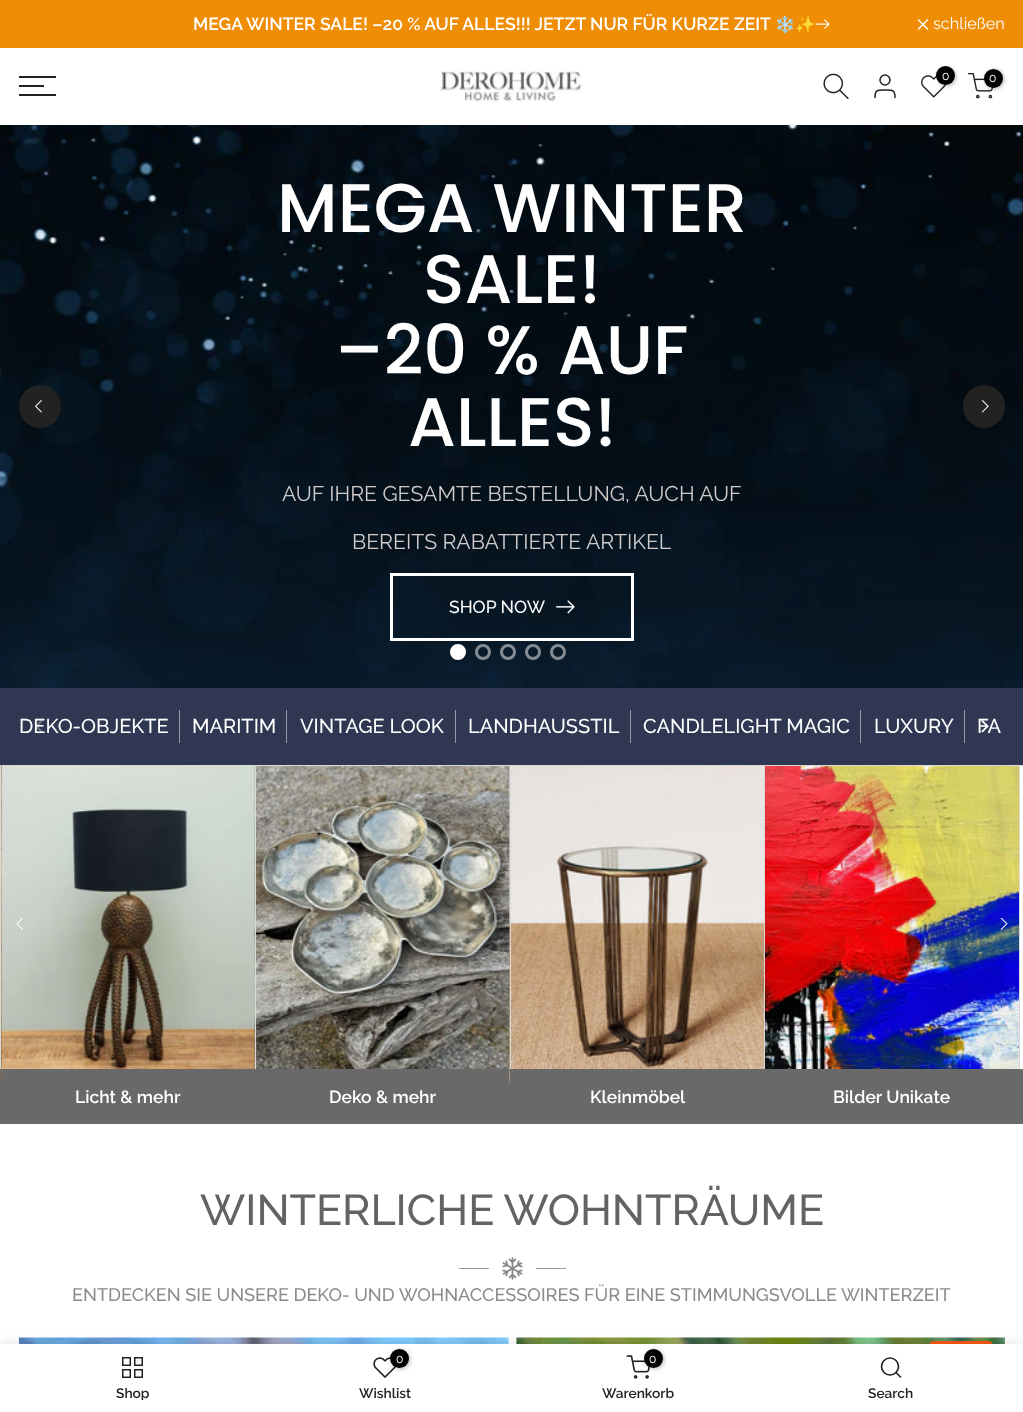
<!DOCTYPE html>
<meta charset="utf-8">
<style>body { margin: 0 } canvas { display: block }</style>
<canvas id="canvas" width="1023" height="1412"></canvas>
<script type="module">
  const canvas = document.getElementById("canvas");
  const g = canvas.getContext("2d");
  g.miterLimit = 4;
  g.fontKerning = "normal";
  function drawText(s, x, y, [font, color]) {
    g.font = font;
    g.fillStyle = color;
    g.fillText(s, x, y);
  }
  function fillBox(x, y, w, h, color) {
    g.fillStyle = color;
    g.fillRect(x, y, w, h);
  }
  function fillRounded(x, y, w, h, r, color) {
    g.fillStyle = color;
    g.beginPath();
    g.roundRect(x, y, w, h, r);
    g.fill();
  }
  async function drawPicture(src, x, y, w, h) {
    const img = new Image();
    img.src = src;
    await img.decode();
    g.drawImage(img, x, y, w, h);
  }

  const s1 = ["600 17.5px Raleway", "#FFFFFF"];
  const s2 = ["16.25px Noto Color Emoji", "#FFFFFF"];
  const s3 = ["16.25px Raleway", "#FFFFFF"];
  const s4 = ["12px Raleway", "#FFFFFF"];
  const s5 = ["500 68.75px Poppins", "#FFFFFF"];
  const s6 = ["21.25px Raleway", "#D0CBCB"];
  const s7 = ["500 17.5px Raleway", "#FFFFFF"];
  const s8 = ["500 20px Raleway", "#FFFFFF"];
  const s9 = ["500 43.1px Raleway", "#636363"];
  const s10 = ["500 18.1px Raleway", "#8C8A8A"];
  const s11 = ["600 13.75px Raleway", "#222222"];

  fillBox(0, 0, 1023, 1412, "#FFFFFF");
  fillBox(0, 0, 1023, 48, "#EF8D04");
  drawText("MEGA WINTER SALE! –20 % AUF ALLES!!! JETZT NUR FÜR KURZE ZEIT", 193, 30, s1);
  drawText("❄️✨", 775, 30, s2);
  await drawPicture("pic1.png", 815, 19, 15, 10);
  g.save();
  g.beginPath();
  g.rect(918, 19, 11, 11);
  g.clip();
  g.beginPath();
  g.moveTo(928, 19.5);
  g.lineTo(918, 29.5);
  g.moveTo(928, 29.5);
  g.lineTo(918, 19.5);
  g.strokeStyle = "#FFFFFF";
  g.lineWidth = 1.4;
  g.stroke();
  g.restore();
  drawText("schließen", 933, 29, s3);
  fillBox(19, 76, 37, 2, "#222222");
  fillBox(19, 85, 25, 2, "#222222");
  fillBox(19, 94, 37, 2, "#222222");
  await drawPicture("pic2.png", 440, 70, 142, 32);
  await drawPicture("pic3.png", 823, 73, 26, 26);
  g.beginPath();
  g.arc(885, 80, 5, 0, Math.PI * 2);
  g.strokeStyle = "#222222";
  g.lineWidth = 1.5;
  g.stroke();
  g.beginPath();
  g.moveTo(895, 97.5);
  g.bezierCurveTo(895, 89.5, 892, 90, 885, 90);
  g.bezierCurveTo(878, 90, 875, 89.5, 875, 97.5);
  g.lineCap = "round";
  g.lineJoin = "round";
  g.stroke();
  await drawPicture("pic4.png", 921, 75, 26, 23);
  g.fillStyle = "rgba(0, 0, 0, 0.3)";
  g.filter = "blur(2px)";
  g.beginPath();
  g.roundRect(938, 68, 18, 18, 9);
  g.fill();
  g.filter = "none";
  g.fillStyle = "#000000";
  g.beginPath();
  g.arc(945.5, 75.5, 9.5, 0, Math.PI * 2);
  g.fill();
  drawText("0", 942, 80, s4);
  await drawPicture("pic5.png", 968, 73, 26, 26);
  g.fillStyle = "rgba(0, 0, 0, 0.3)";
  g.filter = "blur(2px)";
  g.beginPath();
  g.roundRect(985, 70, 19, 19, 9.5);
  g.fill();
  g.filter = "none";
  g.fillStyle = "#000000";
  g.beginPath();
  g.arc(993.5, 78.5, 9.5, 0, Math.PI * 2);
  g.fill();
  drawText("0", 989, 82, s4);
  await drawPicture("pic7.png", 0, 125, 1023, 563);
  fillRounded(19, 385, 42, 43, 21, "#222222");
  await drawPicture("pic6.png", 35, 400, 7, 13);
  drawText("MEGA WINTER", 277, 232, s5);
  drawText("SALE!", 423, 303, s5);
  drawText("–20 % AUF", 335, 374, s5);
  drawText("ALLES!", 408, 446, s5);
  drawText("AUF IHRE GESAMTE BESTELLUNG, AUCH AUF", 282, 501, s6);
  drawText("BEREITS RABATTIERTE ARTIKEL", 352, 549, s6);
  g.strokeStyle = "#FFFFFF";
  g.lineWidth = 3;
  g.lineJoin = "miter";
  g.strokeRect(391.5, 574.5, 241, 65);
  drawText("SHOP NOW", 449, 613, s7);
  await drawPicture("pic8.png", 556, 600, 19, 14);
  fillRounded(963, 385, 42, 43, 21, "#222222");
  await drawPicture("pic9.png", 981, 400, 8, 13);
  g.fillStyle = "#FFFFFF";
  g.beginPath();
  g.arc(458, 652, 6.5, 0, Math.PI * 2);
  g.fill();
  g.stroke();
  g.beginPath();
  g.arc(483, 652, 6.5, 0, Math.PI * 2);
  g.strokeStyle = "rgba(255, 255, 255, 0.5)";
  g.stroke();
  g.beginPath();
  g.arc(508, 652, 6.5, 0, Math.PI * 2);
  g.stroke();
  g.beginPath();
  g.arc(533, 652, 6.5, 0, Math.PI * 2);
  g.stroke();
  g.beginPath();
  g.arc(558, 652, 6.5, 0, Math.PI * 2);
  g.strokeStyle = "#848D94";
  g.stroke();
  fillBox(0, 688, 1023, 77, "#2F3753");
  drawText("DEKO-OBJEKTE", 19, 733, s8);
  fillBox(179, 710, 1, 33, "#979BA9");
  drawText("MARITIM", 192, 733, s8);
  fillBox(286, 710, 1, 33, "#979BA9");
  drawText("VINTAGE LOOK", 300, 733, s8);
  fillBox(455, 710, 1, 33, "#979BA9");
  drawText("LANDHAUSSTIL", 468, 733, s8);
  fillBox(630, 710, 1, 33, "#979BA9");
  drawText("CANDLELIGHT MAGIC", 643, 733, s8);
  fillBox(860, 710, 1, 33, "#979BA9");
  drawText("LUXURY", 874, 733, s8);
  fillBox(964, 710, 1, 33, "#979BA9");
  drawText("FA", 977, 733, s8);
  await drawPicture("pic10.png", 36, 720, 7, 12);
  await drawPicture("pic11.png", 981, 720, 8, 13);
  await drawPicture("pic15.png", 1, 766, 254, 303);
  g.strokeStyle = "#D9D9D9";
  g.lineWidth = 1;
  g.strokeRect(0.5, 765.5, 255, 317);
  await drawPicture("pic12.png", 16, 918, 7, 12);
  fillBox(0, 1069, 255, 55, "#696969");
  await drawPicture("pic16.png", 254, 765, 256, 318);
  g.strokeRect(255.5, 765.5, 255, 317);
  fillBox(255, 1069, 255, 55, "#696969");
  await drawPicture("pic17.png", 509, 765, 255, 318);
  g.strokeRect(510.5, 765.5, 255, 317);
  await drawPicture("pic18.png", 765, 766, 254, 303);
  g.strokeRect(764.5, 765.5, 255, 317);
  await drawPicture("pic13.png", 1000, 918, 8, 12);
  await drawPicture("pic14.png", 1, 765, 1, 317);
  drawText("Licht & mehr", 75, 1103, s1);
  drawText("Deko & mehr", 329, 1103, s1);
  fillBox(510, 1069, 254, 55, "#696969");
  drawText("Kleinmöbel", 590, 1103, s1);
  fillBox(764, 1069, 255, 55, "#696969");
  drawText("Bilder Unikate", 833, 1103, s1);
  g.strokeRect(1019.5, 765.5, 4, 317);
  fillBox(1019, 1069, 4, 55, "#696969");
  drawText("WINTERLICHE WOHNTRÄUME", 200, 1225, s9);
  fillBox(459, 1268, 30, 1, "#9B9B9B");
  await drawPicture("pic19.png", 502, 1257, 21, 23);
  fillBox(536, 1268, 30, 1, "#9B9B9B");
  drawText("ENTDECKEN SIE UNSERE DEKO- UND WOHNACCESSOIRES FÜR EINE STIMMUNGSVOLLE WINTERZEIT", 72, 1301, s10);
  await drawPicture("pic20.png", 18, 1337, 491, 7);
  await drawPicture("pic21.png", 516, 1337, 489, 7);
  fillRounded(929, 1341, 64, 30, 5, "#F85712");
  g.fillStyle = "rgba(0, 0, 0, 0.12)";
  g.filter = "blur(5.5px)";
  g.beginPath();
  g.rect(0, 1344, 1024, 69);
  g.fill();
  g.filter = "none";
  fillBox(0, 1344, 1023, 68, "#FFFFFF");
  g.strokeStyle = "#222222";
  g.lineWidth = 1.5;
  g.strokeRect(122.75, 1357.75, 7.5, 7.5);
  g.strokeRect(134.75, 1357.75, 7.5, 7.5);
  g.strokeRect(122.75, 1369.75, 7.5, 7.5);
  g.strokeRect(134.75, 1369.75, 7.5, 7.5);
  g.save();
  g.beginPath();
  g.rect(19, 1386, 227, 14);
  g.clip();
  drawText("Shop", 116, 1398, s11);
  g.restore();
  await drawPicture("pic22.png", 373, 1357, 23, 21);
  g.fillStyle = "rgba(0, 0, 0, 0.3)";
  g.filter = "blur(2px)";
  g.beginPath();
  g.roundRect(391, 1350, 19, 19, 9.5);
  g.fill();
  g.filter = "none";
  g.fillStyle = "#000000";
  g.beginPath();
  g.arc(399.5, 1358.5, 9.5, 0, Math.PI * 2);
  g.fill();
  drawText("0", 396, 1363, s4);
  drawText("Wishlist", 359, 1398, s11);
  await drawPicture("pic23.png", 626, 1355, 24, 24);
  g.fillStyle = "rgba(0, 0, 0, 0.3)";
  g.filter = "blur(2px)";
  g.beginPath();
  g.roundRect(645, 1350, 19, 19, 9.5);
  g.fill();
  g.filter = "none";
  g.fillStyle = "#000000";
  g.beginPath();
  g.arc(653.5, 1358.5, 9.5, 0, Math.PI * 2);
  g.fill();
  drawText("0", 649, 1363, s4);
  drawText("Warenkorb", 602, 1398, s11);
  g.beginPath();
  g.arc(890, 1366.5, 8.5, 0, Math.PI * 2);
  g.lineWidth = 1.6;
  g.stroke();
  g.beginPath();
  g.moveTo(900.5, 1377);
  g.lineTo(896, 1372.5);
  g.lineJoin = "round";
  g.stroke();
  drawText("Search", 868, 1398, s11);
</script>
